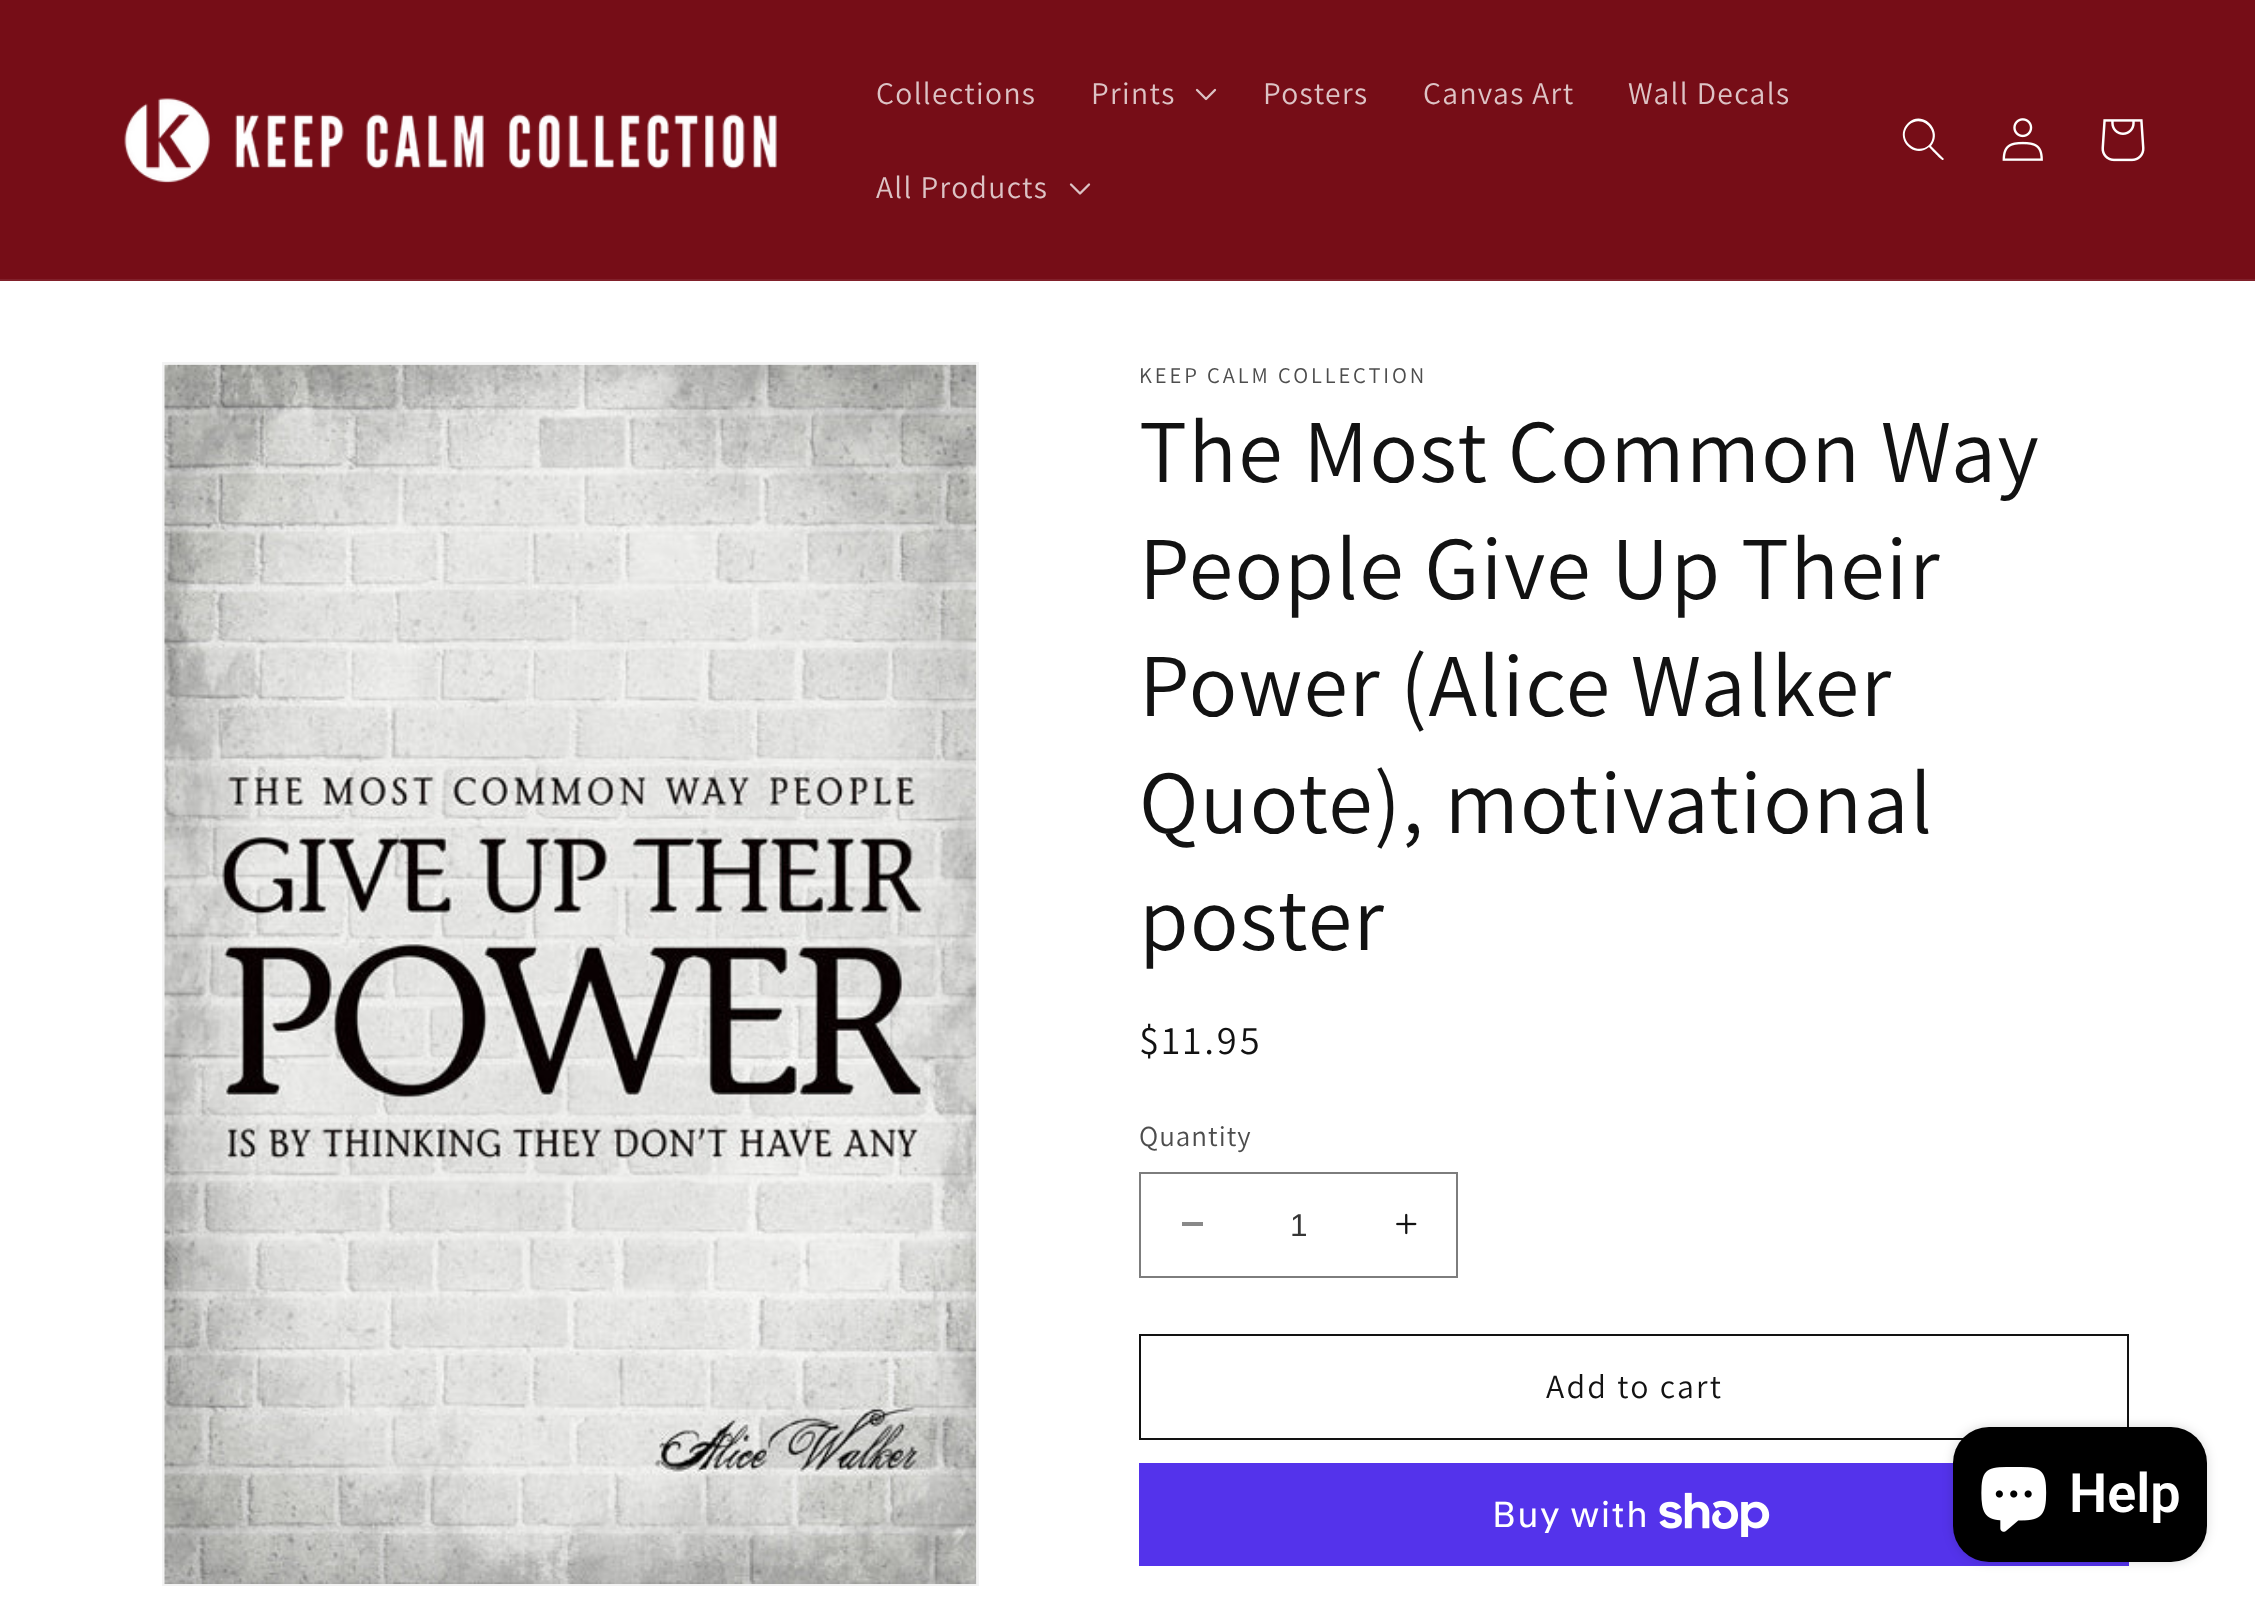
<!DOCTYPE html>
<meta charset="utf-8">
<style>body { margin: 0 } canvas { display: block }</style>
<canvas id="canvas" width="2255" height="1607"></canvas>
<script type="module">
  const canvas = document.getElementById("canvas");
  const g = canvas.getContext("2d");
  g.miterLimit = 4;
  g.fontKerning = "normal";
  function drawText(s, x, y, [font, color]) {
    g.font = font;
    g.fillStyle = color;
    g.fillText(s, x, y);
  }
  function fillBox(x, y, w, h, color) {
    g.fillStyle = color;
    g.fillRect(x, y, w, h);
  }
  function fillRounded(x, y, w, h, r, color) {
    g.fillStyle = color;
    g.beginPath();
    g.roundRect(x, y, w, h, r);
    g.fill();
  }
  async function drawPicture(src, x, y, w, h) {
    const img = new Image();
    img.src = src;
    await img.decode();
    g.drawImage(img, x, y, w, h);
  }

  const s1 = ["31.5px Assistant", "#DDC3C5"];
  const s2 = ["22.5px Assistant", "#4D4D4D"];
  const s3 = ["90px Assistant", "#121212"];
  const s4 = ["40.5px Assistant", "#121212"];
  const s5 = ["29px Assistant", "#4D4D4D"];
  const s6 = ["31.5px Liberation Sans", "#363636"];
  const s7 = ["33.75px Assistant", "#121212"];
  const s8 = ["36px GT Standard", "#FFFFFF"];
  const s9 = ["600 54px Roboto", "#FFFFFF"];

  fillBox(0, 0, 2255, 1607, "#FFFFFF");
  fillBox(0, 0, 2255, 279, "#760D17");
  fillBox(0, 279, 2255, 2, "#81202A");
  await drawPicture("pic1.png", 124, 98, 653, 85);
  g.letterSpacing = "1.35px";
  drawText("Collections", 876, 104, s1);
  drawText("Prints", 1091, 104, s1);
  await drawPicture("pic2.png", 1195, 88, 22, 13);
  drawText("Posters", 1263, 104, s1);
  drawText("Canvas Art", 1423, 104, s1);
  drawText("Wall Decals", 1628, 104, s1);
  drawText("All Products", 876, 198, s1);
  await drawPicture("pic3.png", 1069, 183, 22, 12);
  g.fillStyle = "#FFFFFF";
  g.beginPath();
  g.moveTo(1929, 145);
  g.bezierCurveTo(1916, 157, 1896, 138, 1909, 125);
  g.bezierCurveTo(1922, 113, 1941, 132, 1929, 145);
  g.closePath();
  g.moveTo(1929, 147);
  g.bezierCurveTo(1914, 160, 1893, 138, 1908, 123);
  g.bezierCurveTo(1922, 109, 1944, 130, 1931, 146);
  g.lineTo(1944, 159);
  g.lineTo(1943, 160);
  g.bezierCurveTo(1942, 161, 1931, 149, 1929, 147);
  g.closePath();
  g.fill("evenodd");
  await drawPicture("pic4.png", 2002, 118, 41, 43);
  await drawPicture("pic5.png", 2101, 119, 44, 43);
  g.strokeStyle = "#F3F3F3";
  g.lineWidth = 2;
  g.strokeRect(163, 363, 815, 1222);
  await drawPicture("pic6.png", 164, 364, 813, 1220);
  g.letterSpacing = "2.9px";
  drawText("KEEP CALM COLLECTION", 1139, 383, s2);
  g.letterSpacing = "1.35px";
  drawText("The Most Common Way", 1139, 482, s3);
  drawText("People Give Up Their", 1139, 599, s3);
  drawText("Power (Alice Walker", 1139, 716, s3);
  drawText("Quote), motivational", 1139, 833, s3);
  drawText("poster", 1139, 950, s3);
  g.letterSpacing = "2.9px";
  drawText("$11.95", 1139, 1054, s4);
  g.letterSpacing = "1px";
  drawText("Quantity", 1139, 1146, s5);
  fillBox(1182, 1222, 21, 4, "#898989");
  await drawPicture("pic7.png", 1396, 1213, 21, 22);
  g.strokeStyle = "#7D7D7D";
  g.strokeRect(1140, 1173, 317, 104);
  g.letterSpacing = "0px";
  drawText("1", 1290, 1236, s6);
  g.strokeStyle = "#121212";
  g.strokeRect(1140, 1335, 988, 104);
  g.letterSpacing = "2.25px";
  drawText("Add to cart", 1546, 1398, s7);
  fillBox(1139, 1463, 990, 103, "#5433EB");
  g.letterSpacing = "1.35px";
  drawText("Buy with", 1492, 1527, s8);
  await drawPicture("pic8.png", 1659, 1492, 111, 45);
  g.fillStyle = "rgba(0, 0, 0, 0.15)";
  g.filter = "blur(5.5px)";
  g.beginPath();
  g.roundRect(1953, 1427, 254, 135, 36);
  g.fill();
  g.filter = "none";
  fillRounded(1953, 1427, 254, 135, 36, "#000000");
  await drawPicture("pic9.png", 1981, 1467, 66, 65);
  g.letterSpacing = "0px";
  drawText("Help", 2069, 1512, s9);
</script>
